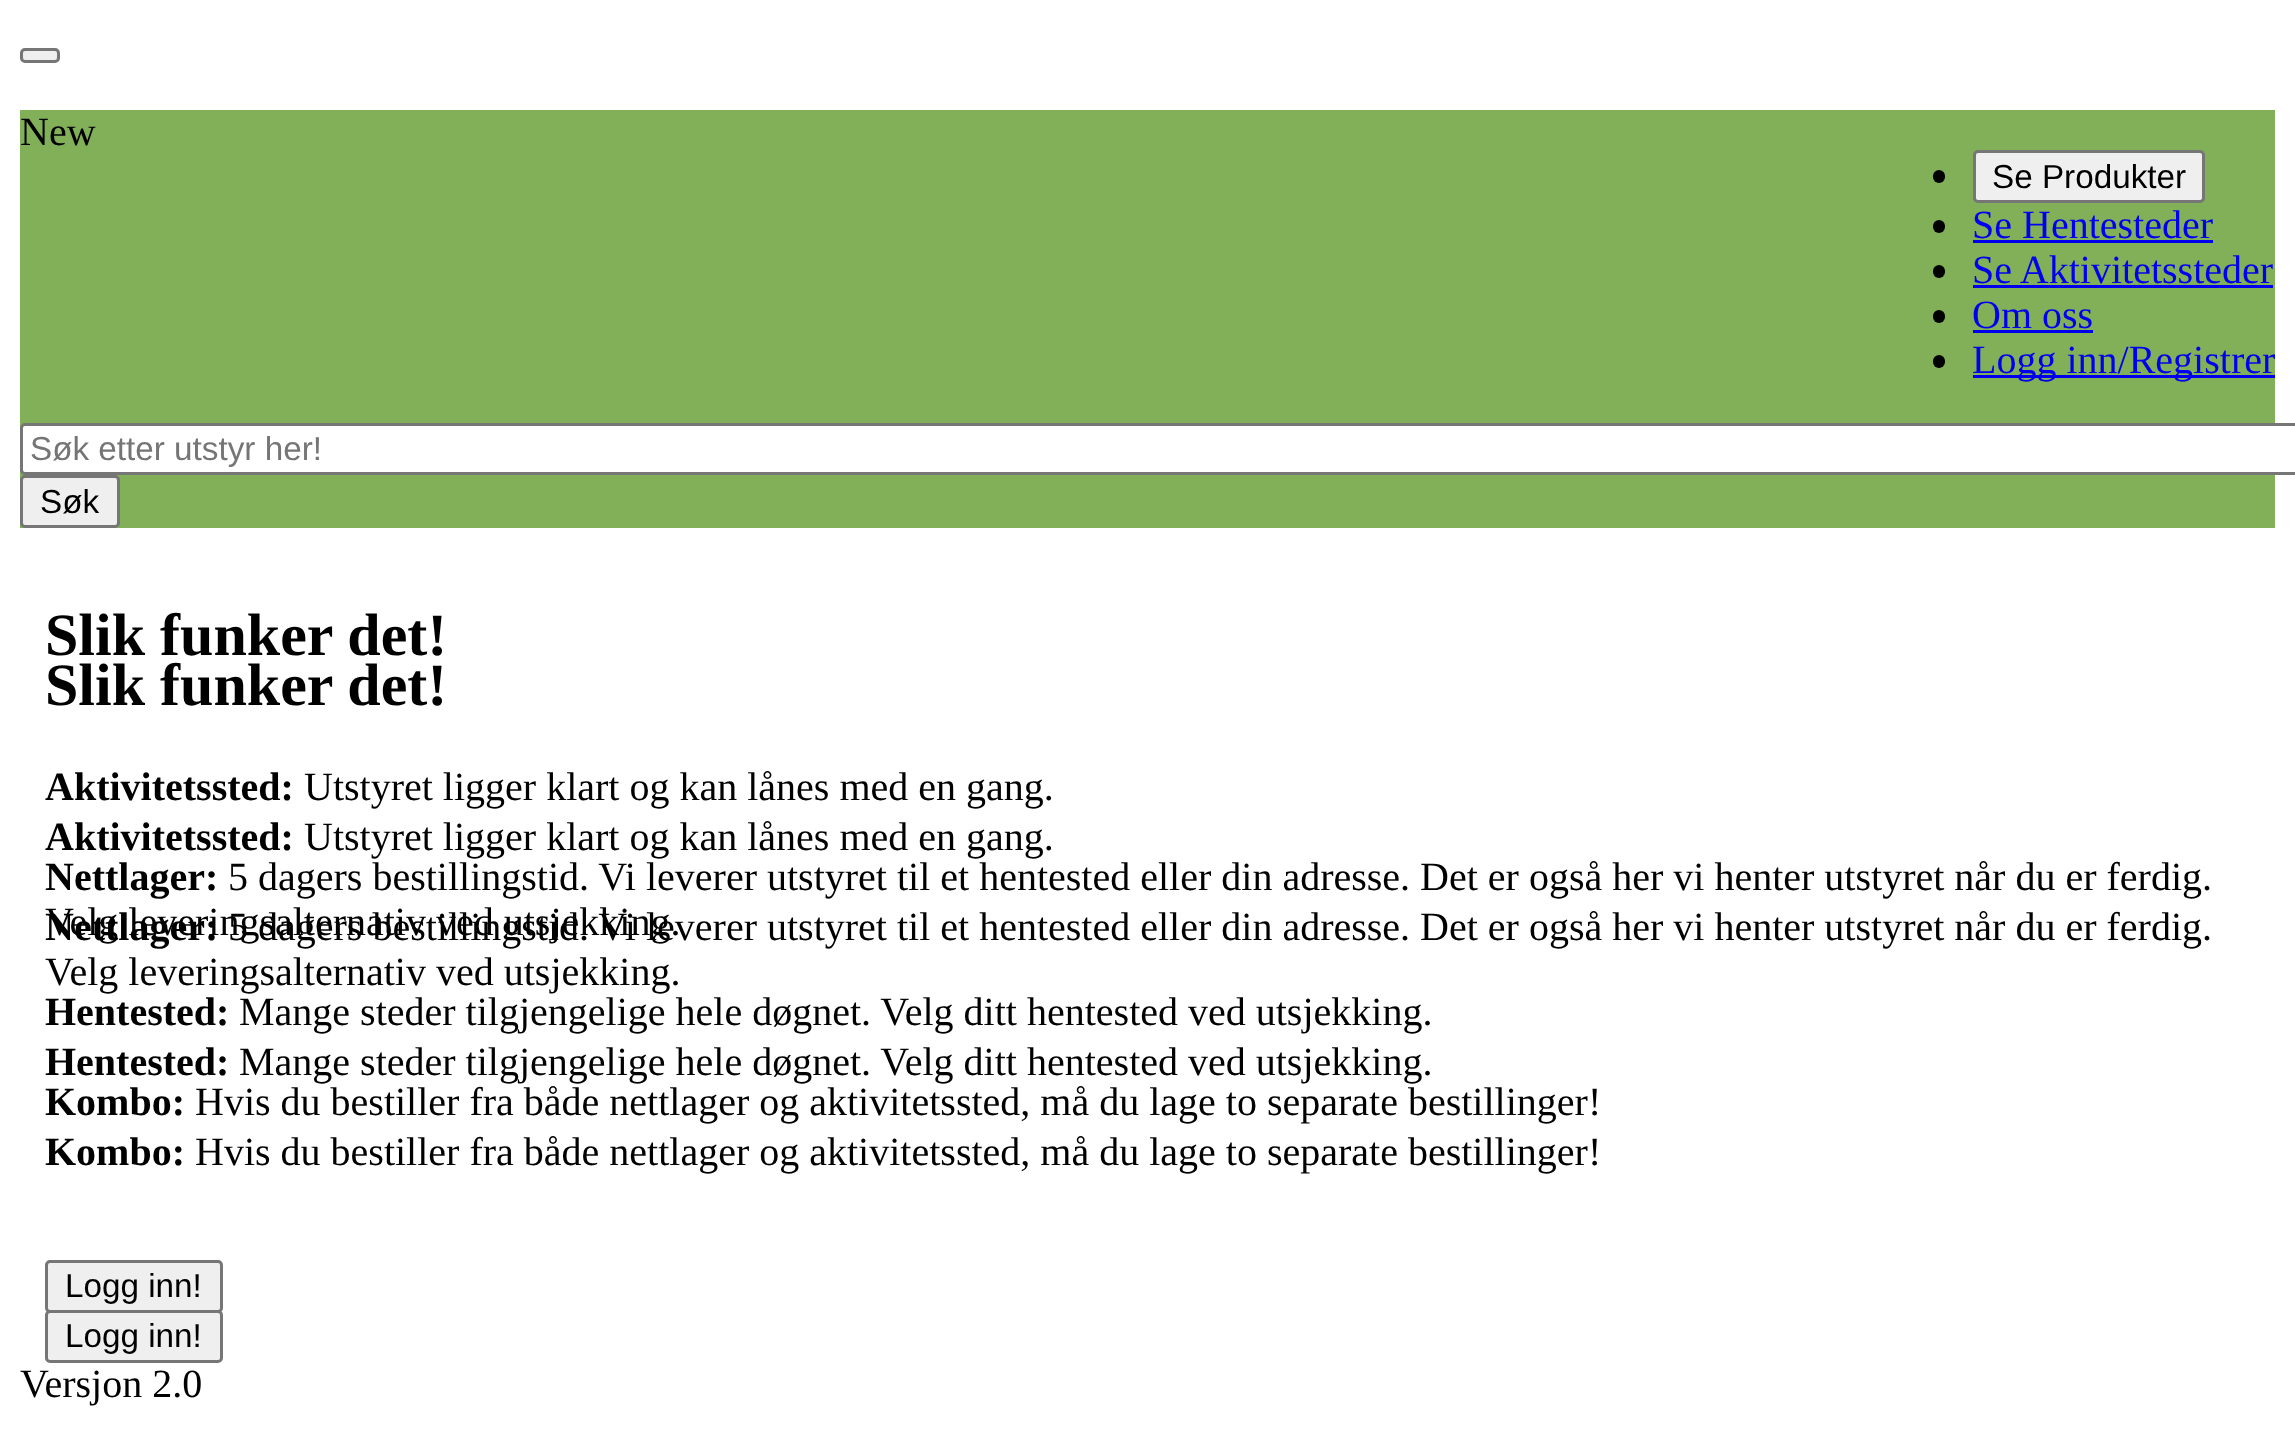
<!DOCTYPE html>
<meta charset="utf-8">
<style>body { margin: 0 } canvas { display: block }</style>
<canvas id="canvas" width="2295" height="1441"></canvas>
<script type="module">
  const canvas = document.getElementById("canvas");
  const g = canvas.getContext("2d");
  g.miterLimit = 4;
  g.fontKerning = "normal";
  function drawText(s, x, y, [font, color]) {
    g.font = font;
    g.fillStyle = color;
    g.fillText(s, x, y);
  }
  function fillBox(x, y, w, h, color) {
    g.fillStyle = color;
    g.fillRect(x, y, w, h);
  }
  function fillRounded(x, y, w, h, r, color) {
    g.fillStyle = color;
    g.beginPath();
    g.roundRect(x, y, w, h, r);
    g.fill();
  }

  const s1 = ["40px Liberation Serif", "#000000"];
  const s2 = ["33.25px Liberation Sans", "#757575"];
  const s3 = ["33.25px Liberation Sans", "#000000"];
  const s4 = ["bold 60px Liberation Serif", "#000000"];
  const s5 = ["bold 40px Liberation Serif", "#000000"];
  const s6 = ["40px Liberation Serif", "#0000EE"];

  fillBox(0, 0, 2295, 1441, "#FFFFFF");
  fillBox(20, 110, 2255, 418, "#81B058");
  drawText("New", 20, 145, s1);
  g.fillStyle = "#FFFFFF";
  g.beginPath();
  g.roundRect(21.5, 424.5, 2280, 49, 3.5);
  g.fill();
  g.strokeStyle = "#767676";
  g.lineWidth = 3;
  g.stroke();
  drawText("Søk etter utstyr her!", 30, 460, s2);
  g.fillStyle = "#EFEFEF";
  g.beginPath();
  g.roundRect(21.5, 476.5, 97, 50, 3.5);
  g.fill();
  g.stroke();
  drawText("Søk", 40, 513, s3);
  drawText("Slik funker det!", 45, 655, s4);
  drawText("Aktivitetssted:", 45, 800, s5);
  drawText("Utstyret ligger klart og kan lånes med en gang.", 304, 800, s1);
  drawText("Nettlager:", 45, 890, s5);
  drawText("5 dagers bestillingstid. Vi leverer utstyret til et hentested eller din adresse. Det er også her vi henter utstyret når du er ferdig.", 228, 890, s1);
  drawText("Nettlager:", 45, 940, s5);
  drawText("5 dagers bestillingstid. Vi leverer utstyret til et hentested eller din adresse. Det er også her vi henter utstyret når du er ferdig.", 228, 940, s1);
  drawText("Velg leveringsalternativ ved utsjekking.", 45, 935, s1);
  drawText("Hentested:", 45, 1025, s5);
  drawText("Mange steder tilgjengelige hele døgnet. Velg ditt hentested ved utsjekking.", 239, 1025, s1);
  drawText("Kombo:", 45, 1115, s5);
  drawText("Hvis du bestiller fra både nettlager og aktivitetssted, må du lage to separate bestillinger!", 195, 1115, s1);
  g.fillStyle = "#EFEFEF";
  g.beginPath();
  g.roundRect(46.5, 1311.5, 175, 50, 3.5);
  g.fill();
  g.stroke();
  g.beginPath();
  g.roundRect(46.5, 1261.5, 175, 50, 3.5);
  g.fill();
  g.stroke();
  drawText("Logg inn!", 65, 1297, s3);
  drawText("Slik funker det!", 45, 705, s4);
  drawText("Aktivitetssted:", 45, 850, s5);
  drawText("Utstyret ligger klart og kan lånes med en gang.", 304, 850, s1);
  drawText("Velg leveringsalternativ ved utsjekking.", 45, 985, s1);
  drawText("Hentested:", 45, 1075, s5);
  drawText("Mange steder tilgjengelige hele døgnet. Velg ditt hentested ved utsjekking.", 239, 1075, s1);
  drawText("Kombo:", 45, 1165, s5);
  drawText("Hvis du bestiller fra både nettlager og aktivitetssted, må du lage to separate bestillinger!", 195, 1165, s1);
  drawText("Logg inn!", 65, 1347, s3);
  drawText("Versjon 2.0", 20, 1397, s1);
  g.fillStyle = "#EFEFEF";
  g.beginPath();
  g.roundRect(21.5, 49.5, 37, 12, 3.5);
  g.fill();
  g.stroke();
  fillRounded(1933, 170, 12, 13, 6, "#000000");
  g.fillStyle = "#EFEFEF";
  g.beginPath();
  g.roundRect(1974.5, 151.5, 229, 50, 3.5);
  g.fill();
  g.stroke();
  drawText("Se Produkter", 1992, 188, s3);
  fillRounded(1933, 220, 12, 13, 6, "#000000");
  drawText("Se Hentesteder", 1972, 238, s6);
  fillBox(1973, 240, 240, 3, "#0000EE");
  fillRounded(1933, 265, 12, 13, 6, "#000000");
  drawText("Se Aktivitetssteder", 1972, 283, s6);
  fillBox(1973, 285, 300, 3, "#0000EE");
  fillRounded(1933, 310, 12, 13, 6, "#000000");
  drawText("Om oss", 1972, 328, s6);
  fillBox(1973, 330, 120, 3, "#0000EE");
  fillRounded(1933, 355, 12, 13, 6, "#000000");
  fillBox(1973, 375, 302, 3, "#0000EE");
  drawText("Logg inn/Registrer", 1972, 373, s6);
</script>
